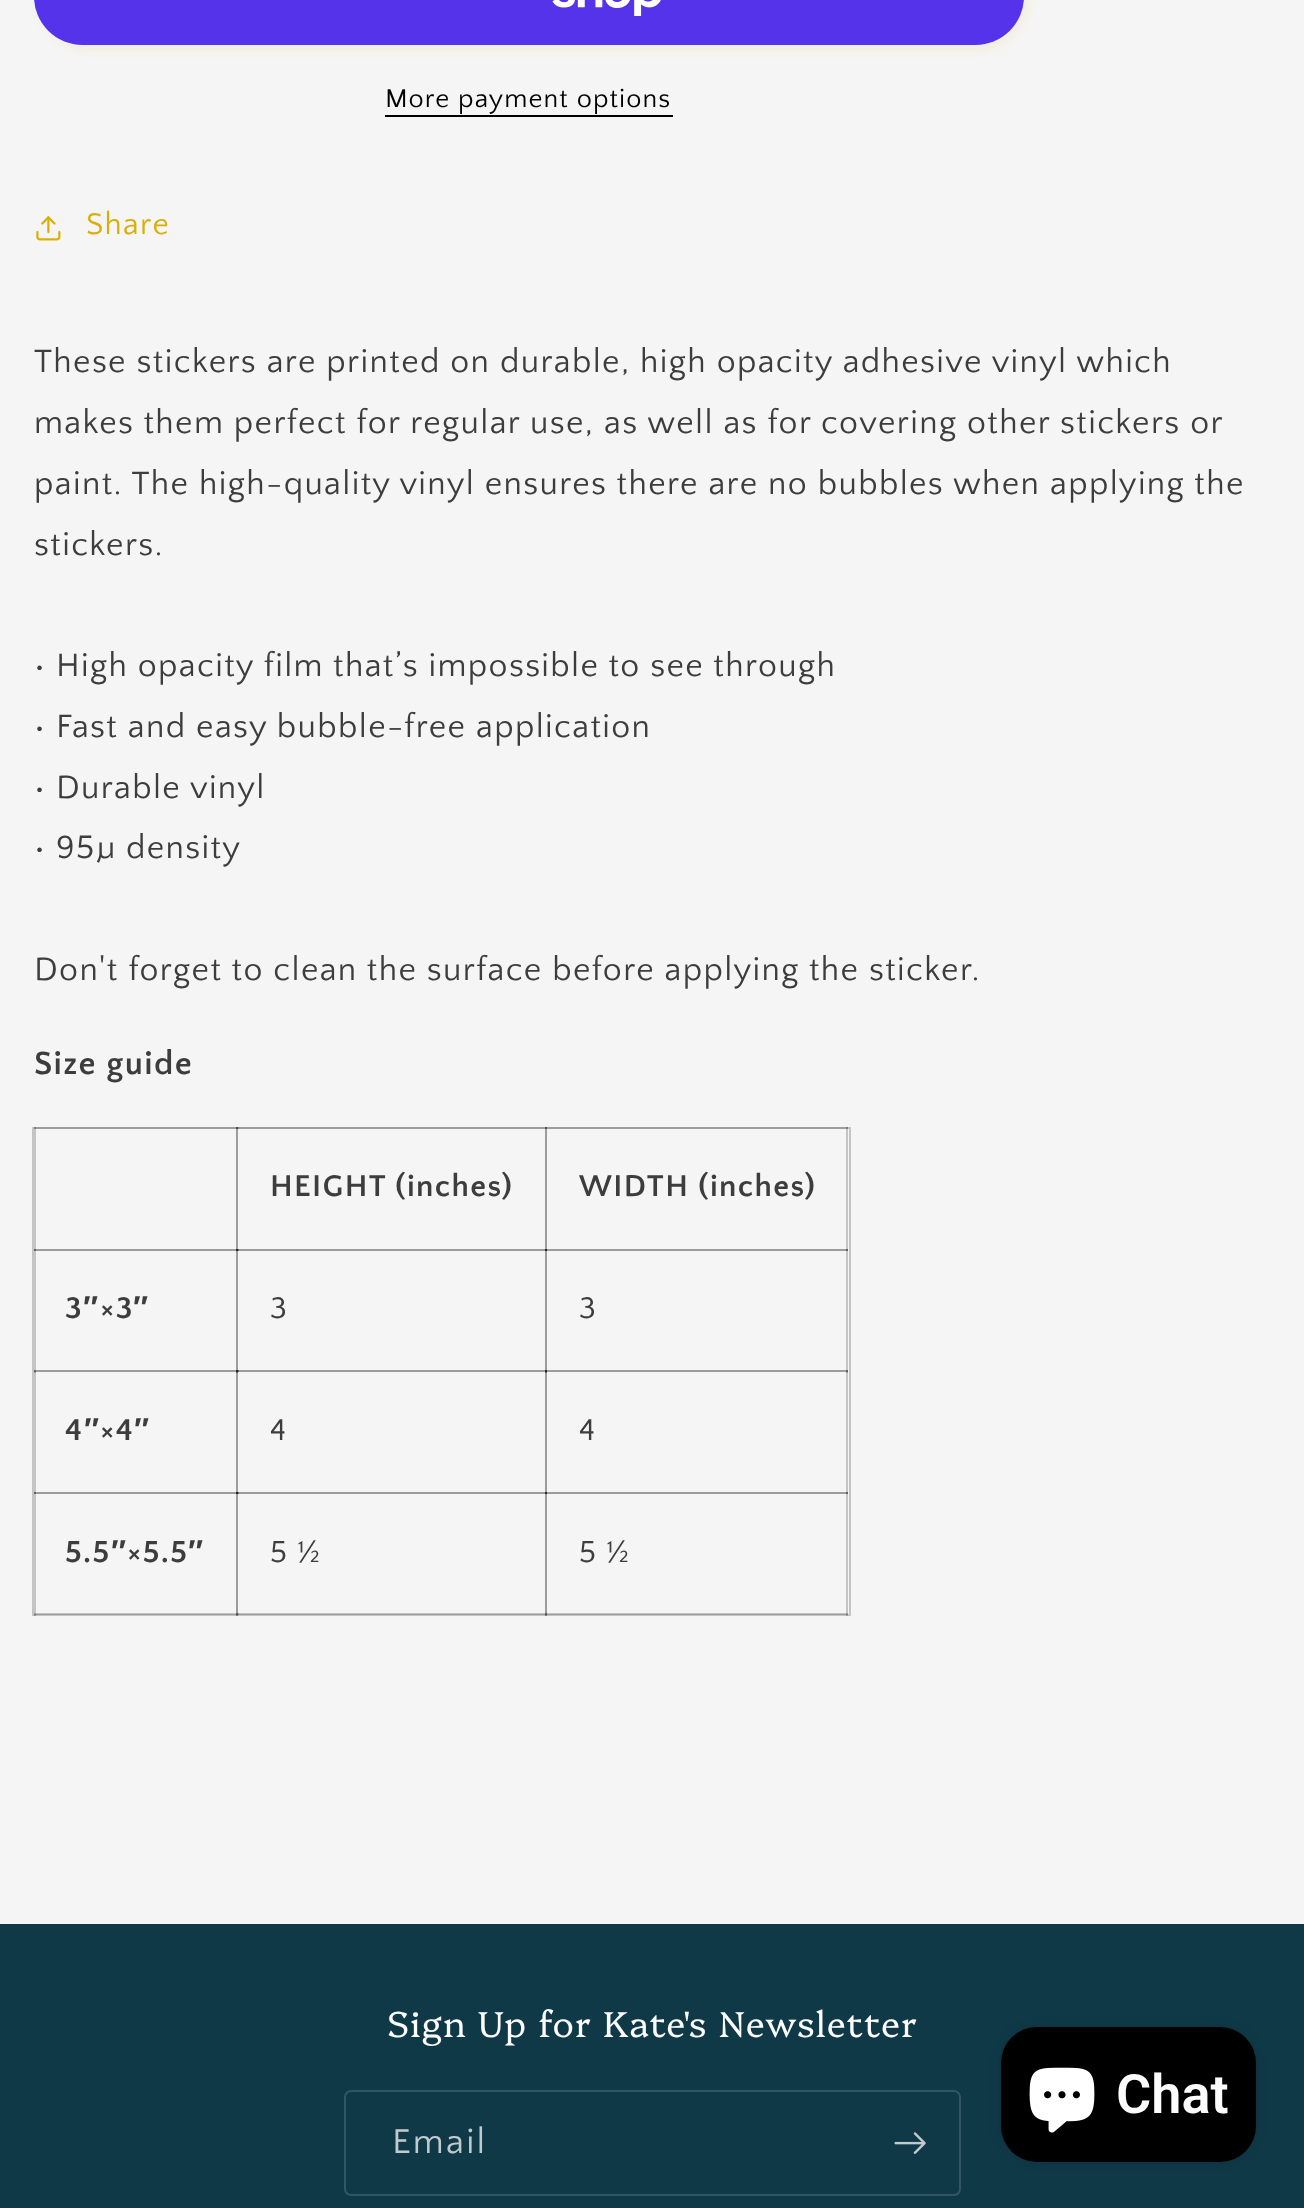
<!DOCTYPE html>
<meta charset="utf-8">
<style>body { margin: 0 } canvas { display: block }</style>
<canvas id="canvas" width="1304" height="2208"></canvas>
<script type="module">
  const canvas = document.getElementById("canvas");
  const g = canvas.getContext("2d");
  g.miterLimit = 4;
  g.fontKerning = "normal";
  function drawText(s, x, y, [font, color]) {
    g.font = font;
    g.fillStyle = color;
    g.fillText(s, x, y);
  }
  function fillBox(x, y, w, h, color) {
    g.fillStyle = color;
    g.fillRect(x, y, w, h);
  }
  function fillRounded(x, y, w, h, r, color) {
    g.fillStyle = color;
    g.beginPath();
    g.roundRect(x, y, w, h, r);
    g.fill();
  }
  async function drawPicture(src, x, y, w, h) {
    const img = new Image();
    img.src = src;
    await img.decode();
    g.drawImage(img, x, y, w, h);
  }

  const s1 = ["27px Quattrocento Sans", "#000000"];
  const s2 = ["31.5px Quattrocento Sans", "#D9AF04"];
  const s3 = ["33.75px Quattrocento Sans", "#3D3D3D"];
  const s4 = ["bold 33.75px Quattrocento Sans", "#3D3D3D"];
  const s5 = ["bold 31.5px Quattrocento Sans", "#3D3D3D"];
  const s6 = ["bold 31.5px Liberation Sans", "#3D3D3D"];
  const s7 = ["31.5px Quattrocento Sans", "#3D3D3D"];
  const s8 = ["300 36px Platypi", "#FCFCFC"];
  const s9 = ["36px Quattrocento Sans", "#C1CBCF"];
  const s10 = ["600 54px Roboto", "#FCFCFC"];

  fillBox(0, 0, 1304, 2208, "#F5F5F5");
  g.fillStyle = "rgba(217, 175, 4, 0.1)";
  g.filter = "blur(5.5px)";
  g.beginPath();
  g.roundRect(38, -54, 990, 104, 52);
  g.fill();
  g.filter = "none";
  fillRounded(34, -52, 990, 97, 51.5, "#5433EB");
  await drawPicture("pic1.png", 552, 0, 109, 16);
  g.letterSpacing = "1.1px";
  drawText("More payment options", 385, 107, s1);
  fillBox(385, 115, 288, 2, "#000000");
  await drawPicture("pic2.png", 36, 216, 25, 25);
  g.letterSpacing = "1.35px";
  drawText("Share", 86, 234, s2);
  drawText("These stickers are printed on durable, high opacity adhesive vinyl which", 34, 372, s3);
  drawText("makes them perfect for regular use, as well as for covering other stickers or", 34, 433, s3);
  drawText("paint. The high-quality vinyl ensures there are no bubbles when applying the", 34, 494, s3);
  drawText("stickers.", 34, 555, s3);
  drawText("• High opacity film that’s impossible to see through", 34, 676, s3);
  drawText("• Fast and easy bubble-free application", 34, 737, s3);
  drawText("• Durable vinyl", 34, 798, s3);
  drawText("• 95µ density", 34, 858, s3);
  drawText("Don't forget to clean the surface before applying the sticker.", 34, 980, s3);
  drawText("Size guide", 34, 1074, s4);
  g.strokeStyle = "#C4C4C4";
  g.lineWidth = 2;
  g.strokeRect(33, 1128, 817, 487);
  fillBox(545, 1127, 303, 2, "#9D9D9D");
  fillBox(545, 1249, 303, 2, "#C4C4C4");
  fillBox(545, 1370, 303, 2, "#C4C4C4");
  fillBox(545, 1492, 303, 2, "#C4C4C4");
  fillBox(846, 1492, 2, 124, "rgba(0, 0, 0, 0.2)");
  fillBox(846, 1370, 2, 124, "rgba(0, 0, 0, 0.2)");
  fillBox(846, 1249, 2, 124, "rgba(0, 0, 0, 0.2)");
  fillBox(846, 1127, 2, 124, "rgba(0, 0, 0, 0.2)");
  fillBox(545, 1613, 303, 2, "rgba(0, 0, 0, 0.2)");
  fillBox(545, 1492, 2, 124, "rgba(0, 0, 0, 0.2)");
  fillBox(236, 1492, 311, 2, "rgba(0, 0, 0, 0.2)");
  fillBox(545, 1492, 2, 124, "rgba(0, 0, 0, 0.2)");
  fillBox(545, 1492, 303, 2, "rgba(0, 0, 0, 0.2)");
  fillBox(545, 1370, 2, 124, "rgba(0, 0, 0, 0.2)");
  fillBox(236, 1370, 311, 2, "rgba(0, 0, 0, 0.2)");
  fillBox(545, 1370, 2, 124, "rgba(0, 0, 0, 0.2)");
  fillBox(545, 1370, 303, 2, "rgba(0, 0, 0, 0.2)");
  fillBox(545, 1249, 2, 124, "rgba(0, 0, 0, 0.2)");
  fillBox(236, 1249, 311, 2, "rgba(0, 0, 0, 0.2)");
  fillBox(545, 1249, 2, 124, "rgba(0, 0, 0, 0.2)");
  fillBox(545, 1249, 303, 2, "rgba(0, 0, 0, 0.2)");
  fillBox(545, 1127, 2, 124, "rgba(0, 0, 0, 0.2)");
  fillBox(236, 1127, 311, 2, "rgba(0, 0, 0, 0.2)");
  fillBox(545, 1127, 2, 124, "rgba(0, 0, 0, 0.2)");
  fillBox(236, 1613, 311, 2, "rgba(0, 0, 0, 0.2)");
  fillBox(236, 1492, 2, 124, "rgba(0, 0, 0, 0.2)");
  fillBox(34, 1492, 205, 2, "rgba(0, 0, 0, 0.2)");
  fillBox(236, 1492, 2, 124, "rgba(0, 0, 0, 0.2)");
  fillBox(236, 1492, 311, 2, "rgba(0, 0, 0, 0.2)");
  fillBox(236, 1370, 2, 124, "rgba(0, 0, 0, 0.2)");
  fillBox(34, 1370, 205, 2, "rgba(0, 0, 0, 0.2)");
  fillBox(236, 1370, 2, 124, "rgba(0, 0, 0, 0.2)");
  fillBox(236, 1370, 311, 2, "rgba(0, 0, 0, 0.2)");
  fillBox(236, 1249, 2, 124, "rgba(0, 0, 0, 0.2)");
  fillBox(34, 1249, 205, 2, "rgba(0, 0, 0, 0.2)");
  fillBox(236, 1249, 2, 124, "rgba(0, 0, 0, 0.2)");
  fillBox(236, 1249, 311, 2, "rgba(0, 0, 0, 0.2)");
  fillBox(236, 1127, 2, 124, "rgba(0, 0, 0, 0.2)");
  fillBox(34, 1127, 205, 2, "rgba(0, 0, 0, 0.2)");
  fillBox(236, 1127, 2, 124, "rgba(0, 0, 0, 0.2)");
  fillBox(34, 1613, 205, 2, "rgba(0, 0, 0, 0.2)");
  fillBox(34, 1492, 2, 124, "rgba(0, 0, 0, 0.2)");
  fillBox(34, 1492, 205, 2, "rgba(0, 0, 0, 0.2)");
  fillBox(34, 1370, 2, 124, "rgba(0, 0, 0, 0.2)");
  fillBox(34, 1370, 205, 2, "rgba(0, 0, 0, 0.2)");
  fillBox(34, 1249, 2, 124, "rgba(0, 0, 0, 0.2)");
  fillBox(34, 1249, 205, 2, "rgba(0, 0, 0, 0.2)");
  fillBox(34, 1127, 2, 124, "rgba(0, 0, 0, 0.2)");
  drawText("HEIGHT (inches)", 270, 1196, s5);
  drawText("WIDTH (inches)", 579, 1196, s5);
  drawText("3", 65, 1318, s5);
  drawText("″", 83, 1318, s6);
  drawText("×3", 100, 1318, s5);
  drawText("″", 133, 1318, s6);
  drawText("3", 270, 1318, s7);
  drawText("3", 579, 1318, s7);
  drawText("4", 65, 1440, s5);
  drawText("″", 84, 1440, s6);
  drawText("×4", 100, 1440, s5);
  drawText("″", 134, 1440, s6);
  drawText("4", 270, 1440, s7);
  drawText("4", 579, 1440, s7);
  drawText("5.5", 65, 1562, s5);
  drawText("″", 111, 1562, s6);
  drawText("×5.5", 127, 1562, s5);
  drawText("″", 188, 1562, s6);
  drawText("5 ½", 270, 1562, s7);
  drawText("5 ½", 579, 1562, s7);
  fillBox(0, 1924, 1304, 284, "#103948");
  drawText("Sign Up for Kate's Newsletter", 387, 2037, s8);
  g.beginPath();
  g.roundRect(345, 2091, 615, 104, 6);
  g.strokeStyle = "#335663";
  g.stroke();
  g.letterSpacing = "2.25px";
  drawText("Email", 392, 2153, s9);
  await drawPicture("pic3.png", 894, 2132, 32, 22);
  g.fillStyle = "rgba(0, 0, 0, 0.15)";
  g.filter = "blur(5.5px)";
  g.beginPath();
  g.roundRect(1001, 2027, 255, 135, 36);
  g.fill();
  g.filter = "none";
  fillRounded(1001, 2027, 255, 135, 36, "#000000");
  await drawPicture("pic4.png", 1029, 2067, 66, 66);
  g.letterSpacing = "0px";
  drawText("Chat", 1116, 2113, s10);
</script>
